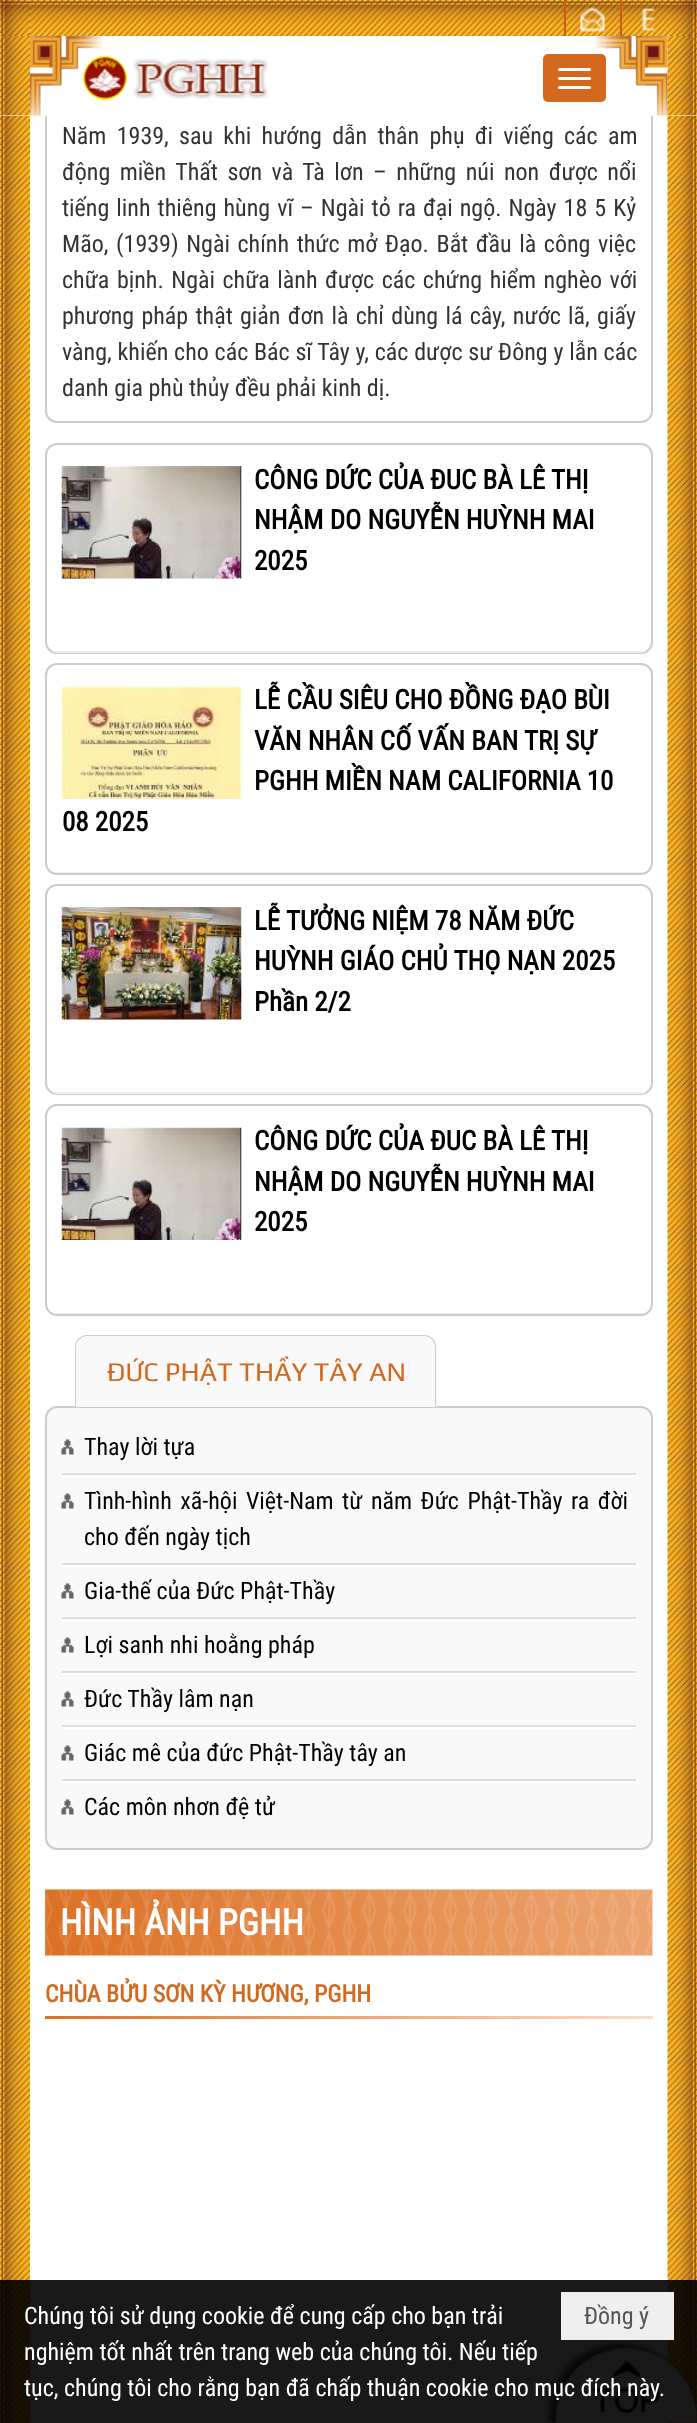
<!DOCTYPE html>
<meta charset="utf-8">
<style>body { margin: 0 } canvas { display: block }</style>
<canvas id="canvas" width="697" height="2423"></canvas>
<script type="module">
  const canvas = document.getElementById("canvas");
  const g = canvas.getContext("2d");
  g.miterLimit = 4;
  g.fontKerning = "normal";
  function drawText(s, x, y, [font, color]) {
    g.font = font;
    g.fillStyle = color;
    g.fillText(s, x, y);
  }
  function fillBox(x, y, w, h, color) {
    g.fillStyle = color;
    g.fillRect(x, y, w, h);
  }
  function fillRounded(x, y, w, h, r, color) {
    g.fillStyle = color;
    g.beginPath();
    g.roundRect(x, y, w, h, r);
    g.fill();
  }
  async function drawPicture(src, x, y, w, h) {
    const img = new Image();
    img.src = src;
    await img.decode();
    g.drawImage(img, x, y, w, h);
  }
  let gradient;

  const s1 = ["24px Roboto Condensed", "#333333"];
  const s2 = ["bold 27px Roboto Condensed", "#000000"];
  const s3 = ["27px Play", "#D2691E"];
  const s4 = ["24px Roboto Condensed", "#000000"];
  const s5 = ["bold 36px Roboto Condensed", "#FFFFFF"];
  const s6 = ["bold 24px Roboto Condensed", "#D2691E"];
  const s7 = ["24px Roboto Condensed", "#FFFFFF"];
  const s8 = ["24px Roboto Condensed", "#555555"];

  fillBox(0, 0, 697, 2423, "#FFFFFF");
  await drawPicture("pic1.png", 0, 116, 697, 2307);
  g.beginPath();
  g.roundRect(46, -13, 606, 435, 11);
  g.strokeStyle = "#CCCCCC";
  g.lineWidth = 2;
  g.stroke();
  await drawPicture("pic2.png", 0, 0, 697, 36);
  fillBox(564, 0, 2, 36, "#CC5D0E");
  await drawPicture("pic3.png", 580, 7, 25, 25);
  fillBox(620, 0, 2, 36, "#CC5D0E");
  await drawPicture("pic4.png", 641, 8, 14, 23);
  fillBox(45, 36, 608, 80, "#FFFFFF");
  await drawPicture("pic5.png", 0, 36, 697, 80);
  await drawPicture("pic6.png", 30, 36, 638, 80);
  await drawPicture("pic7.png", 82, 55, 186, 46);
  fillRounded(543, 54, 63, 48, 5, "#D2691E");
  fillRounded(558, 68, 33, 3, 1.5, "#FFFFFF");
  fillRounded(558, 77, 33, 3, 1.5, "#FFFFFF");
  fillRounded(558, 86, 33, 3, 1.5, "#FFFFFF");
  g.wordSpacing = "4.75px";
  drawText("Năm 1939, sau khi hướng dẫn thân phụ đi viếng các am", 62, 144, s1);
  g.wordSpacing = "4px";
  drawText("động miền Thất sơn và Tà lơn – những núi non được nổi", 62, 180, s1);
  g.wordSpacing = "1.5px";
  drawText("tiếng linh thiêng hùng vĩ – Ngài tỏ ra đại ngộ. Ngày 18 5 Kỷ", 62, 216, s1);
  g.wordSpacing = "2.1px";
  drawText("Mão, (1939) Ngài chính thức mở Đạo. Bắt đầu là công việc", 62, 252, s1);
  g.wordSpacing = "2px";
  drawText("chữa bịnh. Ngài chữa lành được các chứng hiểm nghèo với", 62, 288, s1);
  g.wordSpacing = "1.75px";
  drawText("phương pháp thật giản đơn là chỉ dùng lá cây, nước lã, giấy", 62, 324, s1);
  g.wordSpacing = "0.25px";
  drawText("vàng, khiến cho các Bác sĩ Tây y, các dược sư Đông y lẫn các", 62, 360, s1);
  g.wordSpacing = "0px";
  drawText("danh gia phù thủy đều phải kinh dị.", 62, 396, s1);
  g.beginPath();
  g.roundRect(46, 444, 606, 209, 11);
  g.stroke();
  g.save();
  g.beginPath();
  g.roundRect(47, 444, 604, 209, 11);
  g.clip();
  fillBox(47, 651, 604, 2, "#EEEEEE");
  g.restore();
  await drawPicture("pic8.png", 61, 466, 181, 113);
  drawText("CÔNG DỨC CỦA ĐUC BÀ LÊ THỊ", 254, 489, s2);
  drawText("NHẬM DO NGUYỄN HUỲNH MAI", 254, 529, s2);
  drawText("2025", 254, 570, s2);
  g.beginPath();
  g.roundRect(46, 664, 606, 210, 11);
  g.stroke();
  g.save();
  g.beginPath();
  g.roundRect(47, 665, 604, 208, 11);
  g.clip();
  fillBox(47, 872, 604, 1, "#EEEEEE");
  g.restore();
  drawText("LỄ CẦU SIÊU CHO ĐỒNG ĐẠO BÙI", 254, 709, s2);
  drawText("VĂN NHÂN CỐ VẤN BAN TRỊ SỰ", 254, 750, s2);
  drawText("PGHH MIỀN NAM CALIFORNIA 10", 254, 790, s2);
  drawText("08 2025", 62, 831, s2);
  await drawPicture("pic9.png", 61, 686, 181, 113);
  g.beginPath();
  g.roundRect(46, 885, 606, 209, 11);
  g.stroke();
  g.save();
  g.beginPath();
  g.roundRect(47, 885, 604, 209, 11);
  g.clip();
  fillBox(47, 1092, 604, 2, "#EEEEEE");
  g.restore();
  await drawPicture("pic10.png", 61, 907, 181, 113);
  drawText("LỄ TƯỞNG NIỆM 78 NĂM ĐỨC", 254, 930, s2);
  drawText("HUỲNH GIÁO CHỦ THỌ NẠN 2025", 254, 970, s2);
  drawText("Phần 2/2", 254, 1011, s2);
  g.beginPath();
  g.roundRect(46, 1105, 606, 210, 11);
  g.stroke();
  g.save();
  g.beginPath();
  g.roundRect(47, 1106, 604, 208, 11);
  g.clip();
  fillBox(47, 1313, 604, 1, "#EEEEEE");
  g.restore();
  await drawPicture("pic11.png", 61, 1127, 181, 113);
  drawText("CÔNG DỨC CỦA ĐUC BÀ LÊ THỊ", 254, 1150, s2);
  drawText("NHẬM DO NGUYỄN HUỲNH MAI", 254, 1191, s2);
  drawText("2025", 254, 1231, s2);
  g.fillStyle = "#F9F9F9";
  g.beginPath();
  g.roundRect(46, 1407, 606, 442, 11);
  g.fill();
  g.stroke();
  g.beginPath();
  g.roundRect(75, 1335, 362, 72, [12, 12, 0, 0]);
  g.fill();
  g.fillStyle = "#CCCCCC";
  g.beginPath();
  g.moveTo(87, 1335);
  g.lineTo(424, 1335);
  g.bezierCurveTo(431, 1335, 436, 1340, 436, 1347);
  g.lineTo(436, 1407);
  g.lineTo(75, 1407);
  g.lineTo(75, 1347);
  g.bezierCurveTo(75, 1340, 80, 1335, 87, 1335);
  g.closePath();
  g.moveTo(87, 1336);
  g.lineTo(424, 1336);
  g.bezierCurveTo(430, 1336, 435, 1341, 435, 1347);
  g.lineTo(435, 1407);
  g.lineTo(76, 1407);
  g.lineTo(76, 1347);
  g.bezierCurveTo(76, 1341, 81, 1336, 87, 1336);
  g.closePath();
  g.fill("evenodd");
  drawText("ĐỨC PHẬT THẦY TÂY AN", 107, 1381, s3);
  await drawPicture("pic12.png", 61, 1439, 13, 16);
  fillBox(62, 1473, 574, 2, "#DDDDDD");
  drawText("Thay lời tựa", 84, 1455, s4);
  await drawPicture("pic12.png", 61, 1493, 13, 16);
  fillBox(62, 1475, 574, 2, "#FFFFFF");
  fillBox(62, 1563, 574, 2, "#DDDDDD");
  g.wordSpacing = "3px";
  drawText("Tình-hình xã-hội Việt-Nam từ năm Đức Phật-Thầy ra đời", 84, 1509, s4);
  g.wordSpacing = "0px";
  drawText("cho đến ngày tịch", 84, 1545, s4);
  await drawPicture("pic12.png", 61, 1583, 13, 16);
  fillBox(62, 1565, 574, 2, "#FFFFFF");
  fillBox(62, 1617, 574, 2, "#DDDDDD");
  drawText("Gia-thế của Đức Phật-Thầy", 84, 1599, s4);
  await drawPicture("pic12.png", 61, 1637, 13, 16);
  fillBox(62, 1619, 574, 2, "#FFFFFF");
  fillBox(62, 1671, 574, 2, "#DDDDDD");
  drawText("Lợi sanh nhi hoằng pháp", 84, 1653, s4);
  await drawPicture("pic12.png", 61, 1691, 13, 16);
  fillBox(62, 1673, 574, 2, "#FFFFFF");
  fillBox(62, 1725, 574, 2, "#DDDDDD");
  drawText("Đức Thầy lâm nạn", 84, 1707, s4);
  await drawPicture("pic12.png", 61, 1745, 13, 16);
  fillBox(62, 1727, 574, 2, "#FFFFFF");
  fillBox(62, 1779, 574, 2, "#DDDDDD");
  drawText("Giác mê của đức Phật-Thầy tây an", 84, 1761, s4);
  await drawPicture("pic12.png", 61, 1799, 13, 16);
  fillBox(62, 1781, 574, 2, "#FFFFFF");
  drawText("Các môn nhơn đệ tử", 84, 1815, s4);
  await drawPicture("pic13.png", 45, 1889, 608, 67);
  drawText("HÌNH ẢNH PGHH", 60, 1935, s5);
  drawText("CHÙA BỬU SƠN KỲ HƯƠNG, PGHH", 45, 2002, s6);
  gradient = g.createLinearGradient(45, 2018, 653, 2018);
  gradient.addColorStop(0.01, "#DC7125");
  gradient.addColorStop(1, "#FBDDC7");
  g.fillStyle = gradient;
  g.fillRect(45, 2016, 608, 3);
  await drawPicture("pic14.png", 544, 2340, 153, 83);
  fillBox(0, 2280, 697, 143, "rgba(0, 0, 0, 0.9)");
  drawText("Chúng tôi sử dụng cookie để cung cấp cho bạn trải", 24, 2324, s7);
  drawText("nghiệm tốt nhất trên trang web của chúng tôi. Nếu tiếp", 24, 2360, s7);
  drawText("tục, chúng tôi cho rằng bạn đã chấp thuận cookie cho mục đích này.", 24, 2396, s7);
  fillBox(561, 2292, 113, 48, "#EEEEEE");
  drawText("Đồng ý", 584, 2324, s8);
</script>
